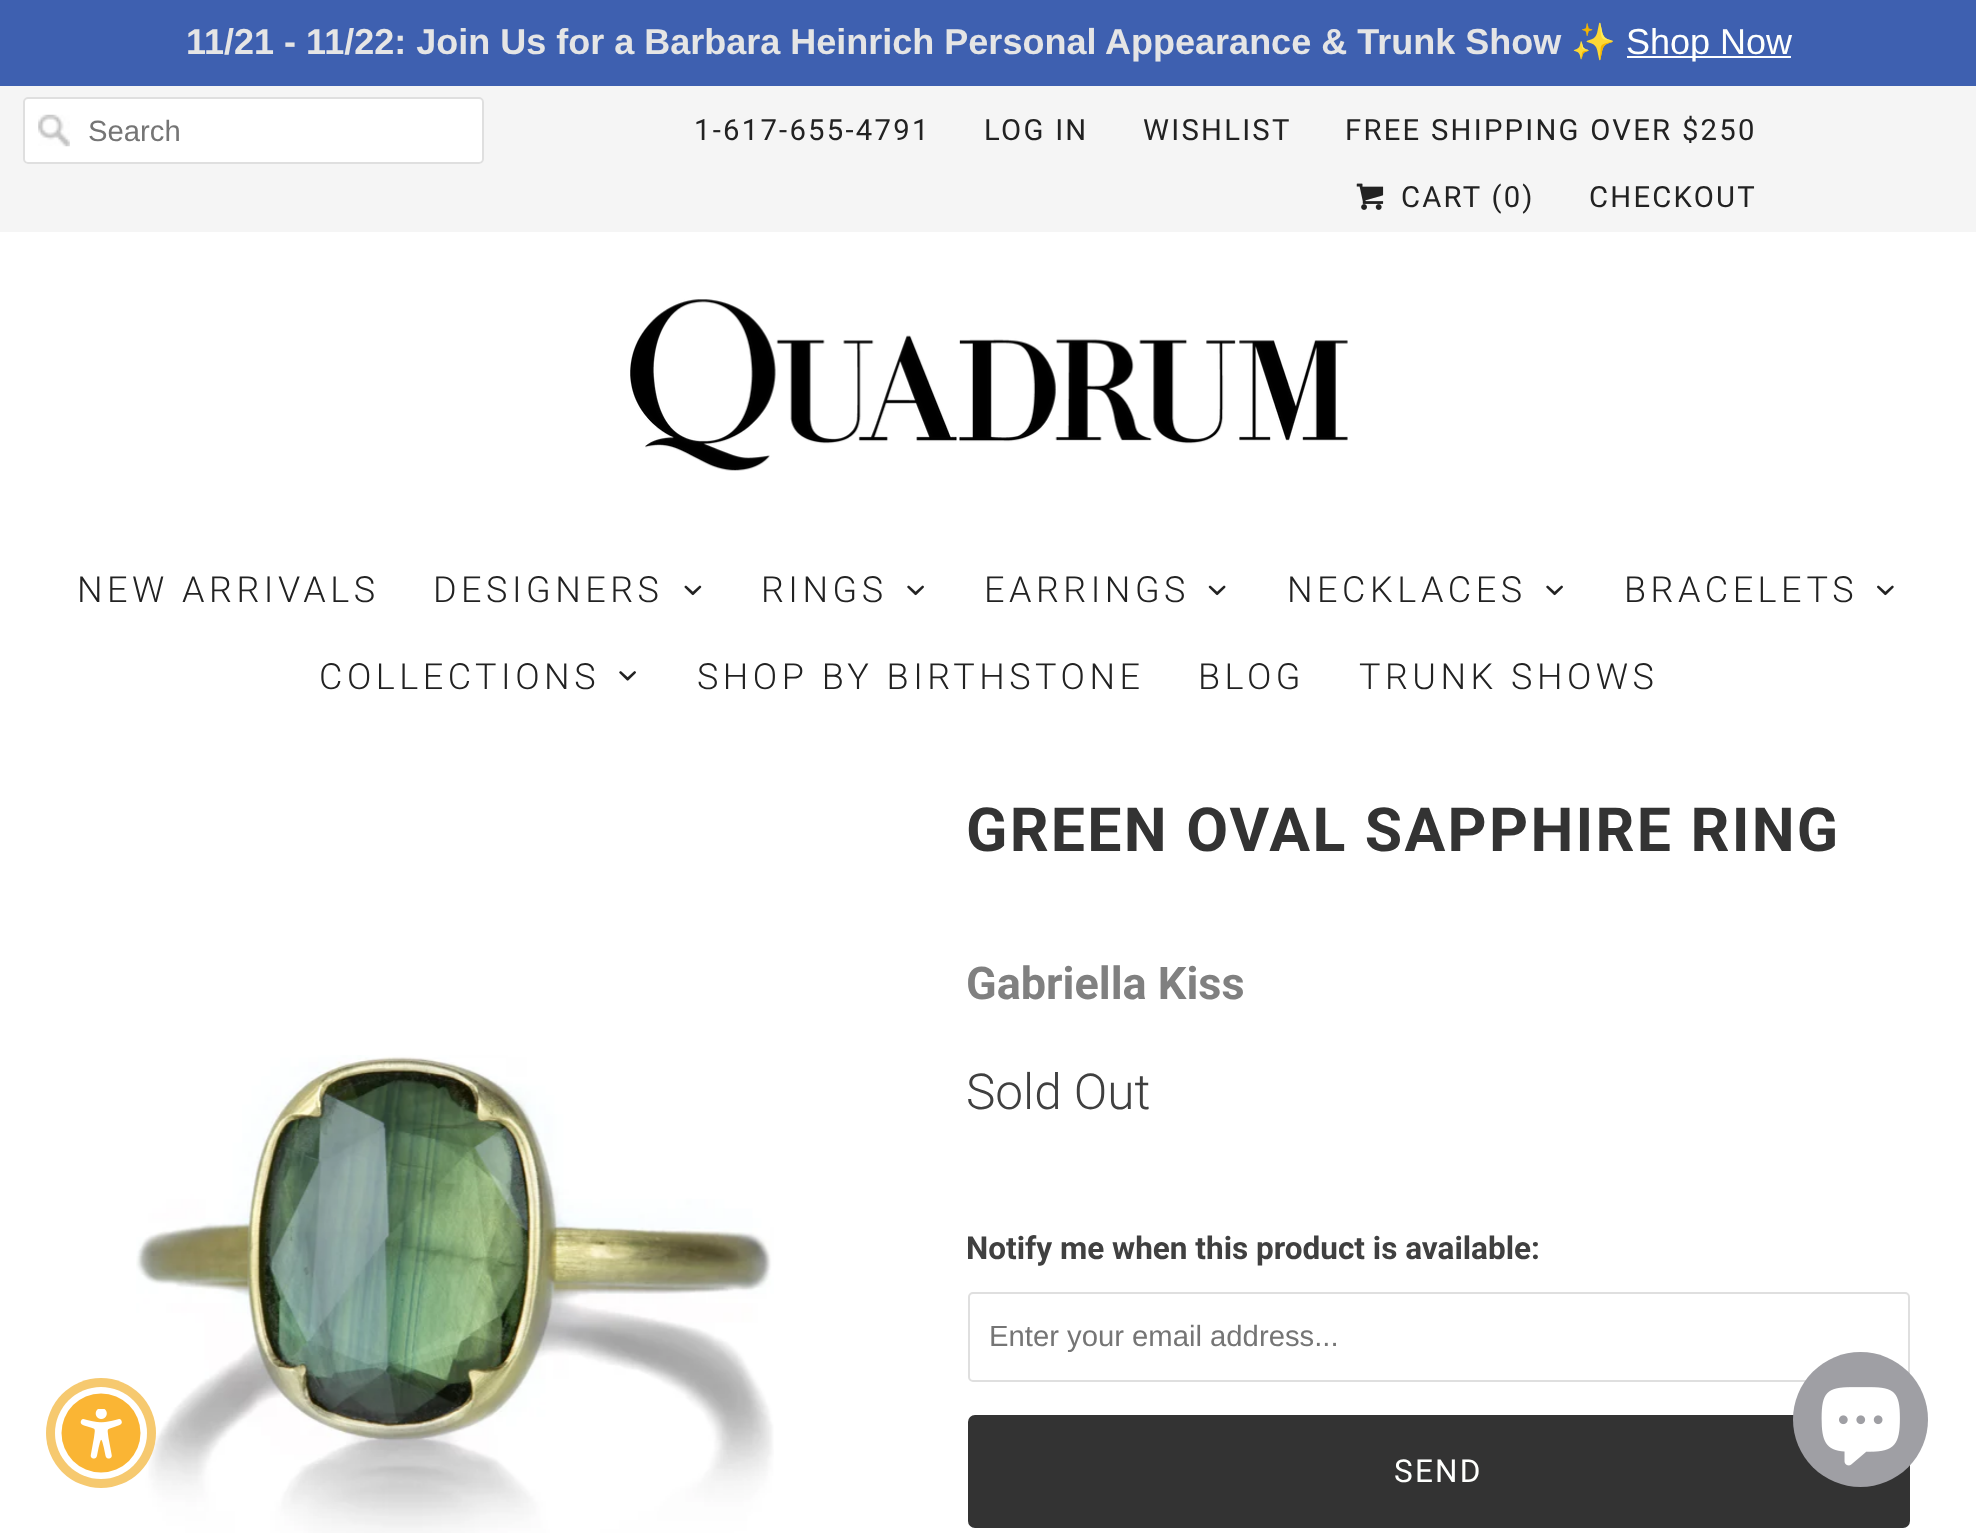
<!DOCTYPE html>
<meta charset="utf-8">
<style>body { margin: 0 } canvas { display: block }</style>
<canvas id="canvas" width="1976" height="1533"></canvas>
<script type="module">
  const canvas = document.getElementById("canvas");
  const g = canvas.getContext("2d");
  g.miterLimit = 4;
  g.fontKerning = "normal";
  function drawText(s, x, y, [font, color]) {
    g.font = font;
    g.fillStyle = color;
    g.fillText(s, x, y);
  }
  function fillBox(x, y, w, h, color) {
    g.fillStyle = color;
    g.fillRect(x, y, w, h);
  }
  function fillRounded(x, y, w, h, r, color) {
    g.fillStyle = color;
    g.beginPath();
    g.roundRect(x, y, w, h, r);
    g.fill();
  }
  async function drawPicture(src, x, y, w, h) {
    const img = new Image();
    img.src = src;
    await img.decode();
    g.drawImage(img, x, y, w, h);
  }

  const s1 = ["bold 36px Liberation Sans", "#E5E5E5"];
  const s2 = ["36px Noto Color Emoji", "#E5E5E5"];
  const s3 = ["36px Liberation Sans", "#FEFFFD"];
  const s4 = ["29.25px Liberation Sans", "#757575"];
  const s5 = ["29.25px Roboto", "#222222"];
  const s6 = ["300 36px Roboto", "#222222"];
  const s7 = ["bold 60.75px Roboto", "#333333"];
  const s8 = ["bold 45px Roboto", "#808080"];
  const s9 = ["300 49.5px Roboto", "#404040"];
  const s10 = ["bold 31.5px Roboto", "#404040"];
  const s11 = ["31.5px Roboto", "#FEFFFD"];

  fillBox(0, 0, 1976, 1533, "#FFFFFF");
  fillBox(0, 0, 1976, 86, "#3E60B0");
  drawText("11/21 - 11/22: Join Us for a Barbara Heinrich Personal Appearance & Trunk Show", 186, 54, s1);
  drawText("✨", 1571, 54, s2);
  fillBox(1627, 56, 164, 2, "#FFFFFF");
  drawText("Shop Now", 1626, 54, s3);
  fillBox(0, 86, 1976, 146, "#F5F5F5");
  fillRounded(23, 97, 461, 67, 5, "#FFFFFF");
  await drawPicture("pic1.png", 38, 114, 32, 33);
  g.beginPath();
  g.roundRect(24, 98, 459, 65, 4);
  g.strokeStyle = "#DFDFDF";
  g.lineWidth = 2;
  g.stroke();
  drawText("Search", 88, 141, s4);
  g.letterSpacing = "2.25px";
  drawText("1-617-655-4791", 694, 140, s5);
  drawText("LOG IN", 984, 140, s5);
  drawText("WISHLIST", 1143, 140, s5);
  drawText("FREE SHIPPING OVER $250", 1345, 140, s5);
  await drawPicture("pic2.png", 1356, 183, 28, 27);
  drawText("CART (0)", 1401, 207, s5);
  drawText("CHECKOUT", 1589, 207, s5);
  await drawPicture("pic3.png", 630, 299, 718, 172);
  g.letterSpacing = "4.5px";
  drawText("NEW ARRIVALS", 77, 602, s6);
  drawText("DESIGNERS", 433, 602, s6);
  await drawPicture("pic4.png", 684, 585, 18, 11);
  drawText("RINGS", 761, 602, s6);
  await drawPicture("pic5.png", 907, 585, 17, 11);
  drawText("EARRINGS", 984, 602, s6);
  await drawPicture("pic6.png", 1208, 585, 18, 11);
  drawText("NECKLACES", 1287, 602, s6);
  await drawPicture("pic5.png", 1546, 585, 17, 11);
  drawText("BRACELETS", 1624, 602, s6);
  await drawPicture("pic7.png", 1877, 585, 17, 11);
  drawText("COLLECTIONS", 319, 689, s6);
  await drawPicture("pic8.png", 619, 671, 17, 10);
  drawText("SHOP BY BIRTHSTONE", 697, 689, s6);
  drawText("BLOG", 1198, 689, s6);
  drawText("TRUNK SHOWS", 1359, 689, s6);
  await drawPicture("pic10.png", 136, 1055, 638, 478);
  g.fillStyle = "#F6C96F";
  g.beginPath();
  g.arc(101, 1433, 55, 0, Math.PI * 2);
  g.fill();
  g.fillStyle = "#FFFFFF";
  g.beginPath();
  g.arc(101, 1433, 46, 0, Math.PI * 2);
  g.fill();
  g.fillStyle = "#FAB534";
  g.beginPath();
  g.arc(101, 1433, 39.5, 0, Math.PI * 2);
  g.fill();
  await drawPicture("pic9.png", 80, 1409, 42, 50);
  g.letterSpacing = "2.25px";
  drawText("GREEN OVAL SAPPHIRE RING", 966, 851, s7);
  g.letterSpacing = "0px";
  drawText("Gabriella Kiss", 966, 999, s8);
  drawText("Sold Out", 966, 1109, s9);
  drawText("Notify me when this product is available:", 966, 1259, s10);
  g.beginPath();
  g.roundRect(969, 1293, 940, 88, 4);
  g.stroke();
  drawText("Enter your email address...", 989, 1346, s4);
  g.fillStyle = "#333333";
  g.beginPath();
  g.roundRect(969, 1416, 940, 111, 6);
  g.fill();
  g.strokeStyle = "#333333";
  g.stroke();
  g.letterSpacing = "2.25px";
  drawText("SEND", 1394, 1482, s11);
  g.fillStyle = "#9F9FA4";
  g.beginPath();
  g.arc(1860.5, 1419.5, 67.5, 0, Math.PI * 2);
  g.fill();
  await drawPicture("pic11.png", 1821, 1387, 79, 79);
</script>
